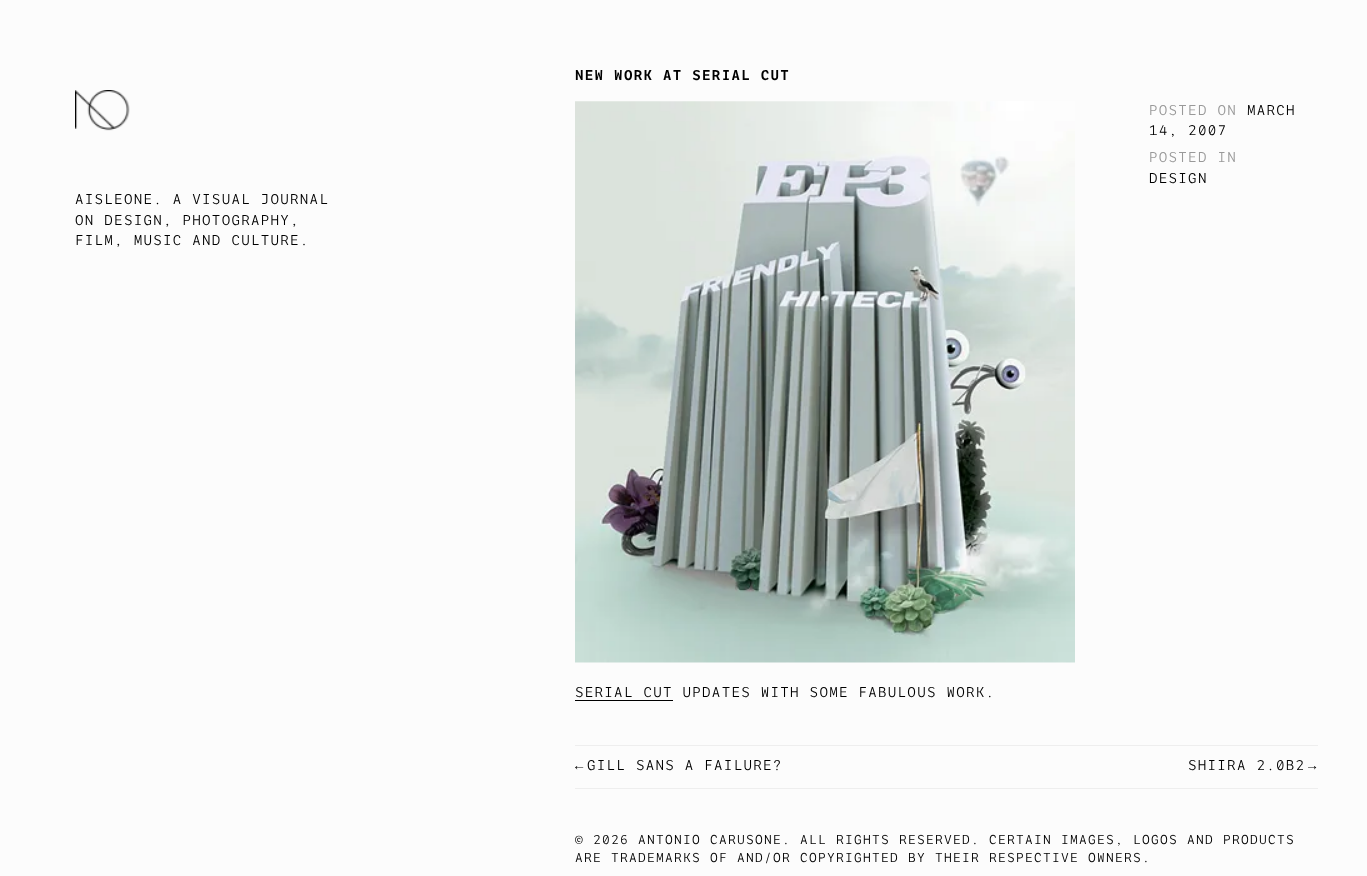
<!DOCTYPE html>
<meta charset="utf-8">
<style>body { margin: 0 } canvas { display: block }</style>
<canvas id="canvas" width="1367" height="876"></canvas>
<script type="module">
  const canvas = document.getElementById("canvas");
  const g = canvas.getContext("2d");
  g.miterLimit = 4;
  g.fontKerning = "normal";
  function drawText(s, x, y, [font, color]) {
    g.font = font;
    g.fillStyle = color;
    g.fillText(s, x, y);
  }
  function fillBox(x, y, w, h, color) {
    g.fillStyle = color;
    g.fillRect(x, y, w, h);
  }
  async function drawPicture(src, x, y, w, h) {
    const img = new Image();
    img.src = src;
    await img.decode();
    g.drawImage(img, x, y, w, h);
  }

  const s1 = ["13.75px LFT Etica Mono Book", "#000000"];
  const s2 = ["600 13.75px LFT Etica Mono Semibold", "#000000"];
  const s3 = ["13.75px LFT Etica Mono Book", "#999999"];
  const s4 = ["13.75px Liberation Mono", "#000000"];
  const s5 = ["12.5px LFT Etica Mono Book", "#000000"];

  fillBox(0, 0, 1367, 876, "#FCFCFC");
  await drawPicture("pic1.png", 75, 90, 55, 41);
  g.letterSpacing = "1.25px";
  drawText("AISLEONE. A VISUAL JOURNAL", 75, 204, s1);
  drawText("ON DESIGN, PHOTOGRAPHY,", 75, 225, s1);
  drawText("FILM, MUSIC AND CULTURE.", 75, 245, s1);
  drawText("NEW WORK AT SERIAL CUT", 575, 80, s2);
  drawText("POSTED ON", 1149, 115, s3);
  drawText("MARCH", 1247, 115, s1);
  drawText("14, 2007", 1149, 135, s1);
  drawText("POSTED IN", 1149, 162, s3);
  drawText("DESIGN", 1149, 183, s1);
  await drawPicture("pic2.png", 575, 101, 500, 562);
  drawText("SERIAL CUT UPDATES WITH SOME FABULOUS WORK.", 575, 697, s1);
  fillBox(575, 700, 98, 1, "#000000");
  fillBox(575, 745, 743, 1, "#EEEEEE");
  fillBox(575, 788, 743, 1, "#EEEEEE");
  drawText("←", 575, 770, s4);
  drawText("GILL SANS A FAILURE?", 587, 770, s1);
  drawText("SHIIRA 2.0B2", 1188, 770, s1);
  drawText("→", 1308, 770, s4);
  drawText("© 2026 ANTONIO CARUSONE. ALL RIGHTS RESERVED. CERTAIN IMAGES, LOGOS AND PRODUCTS", 575, 844, s5);
  drawText("ARE TRADEMARKS OF AND/OR COPYRIGHTED BY THEIR RESPECTIVE OWNERS.", 575, 862, s5);
</script>
